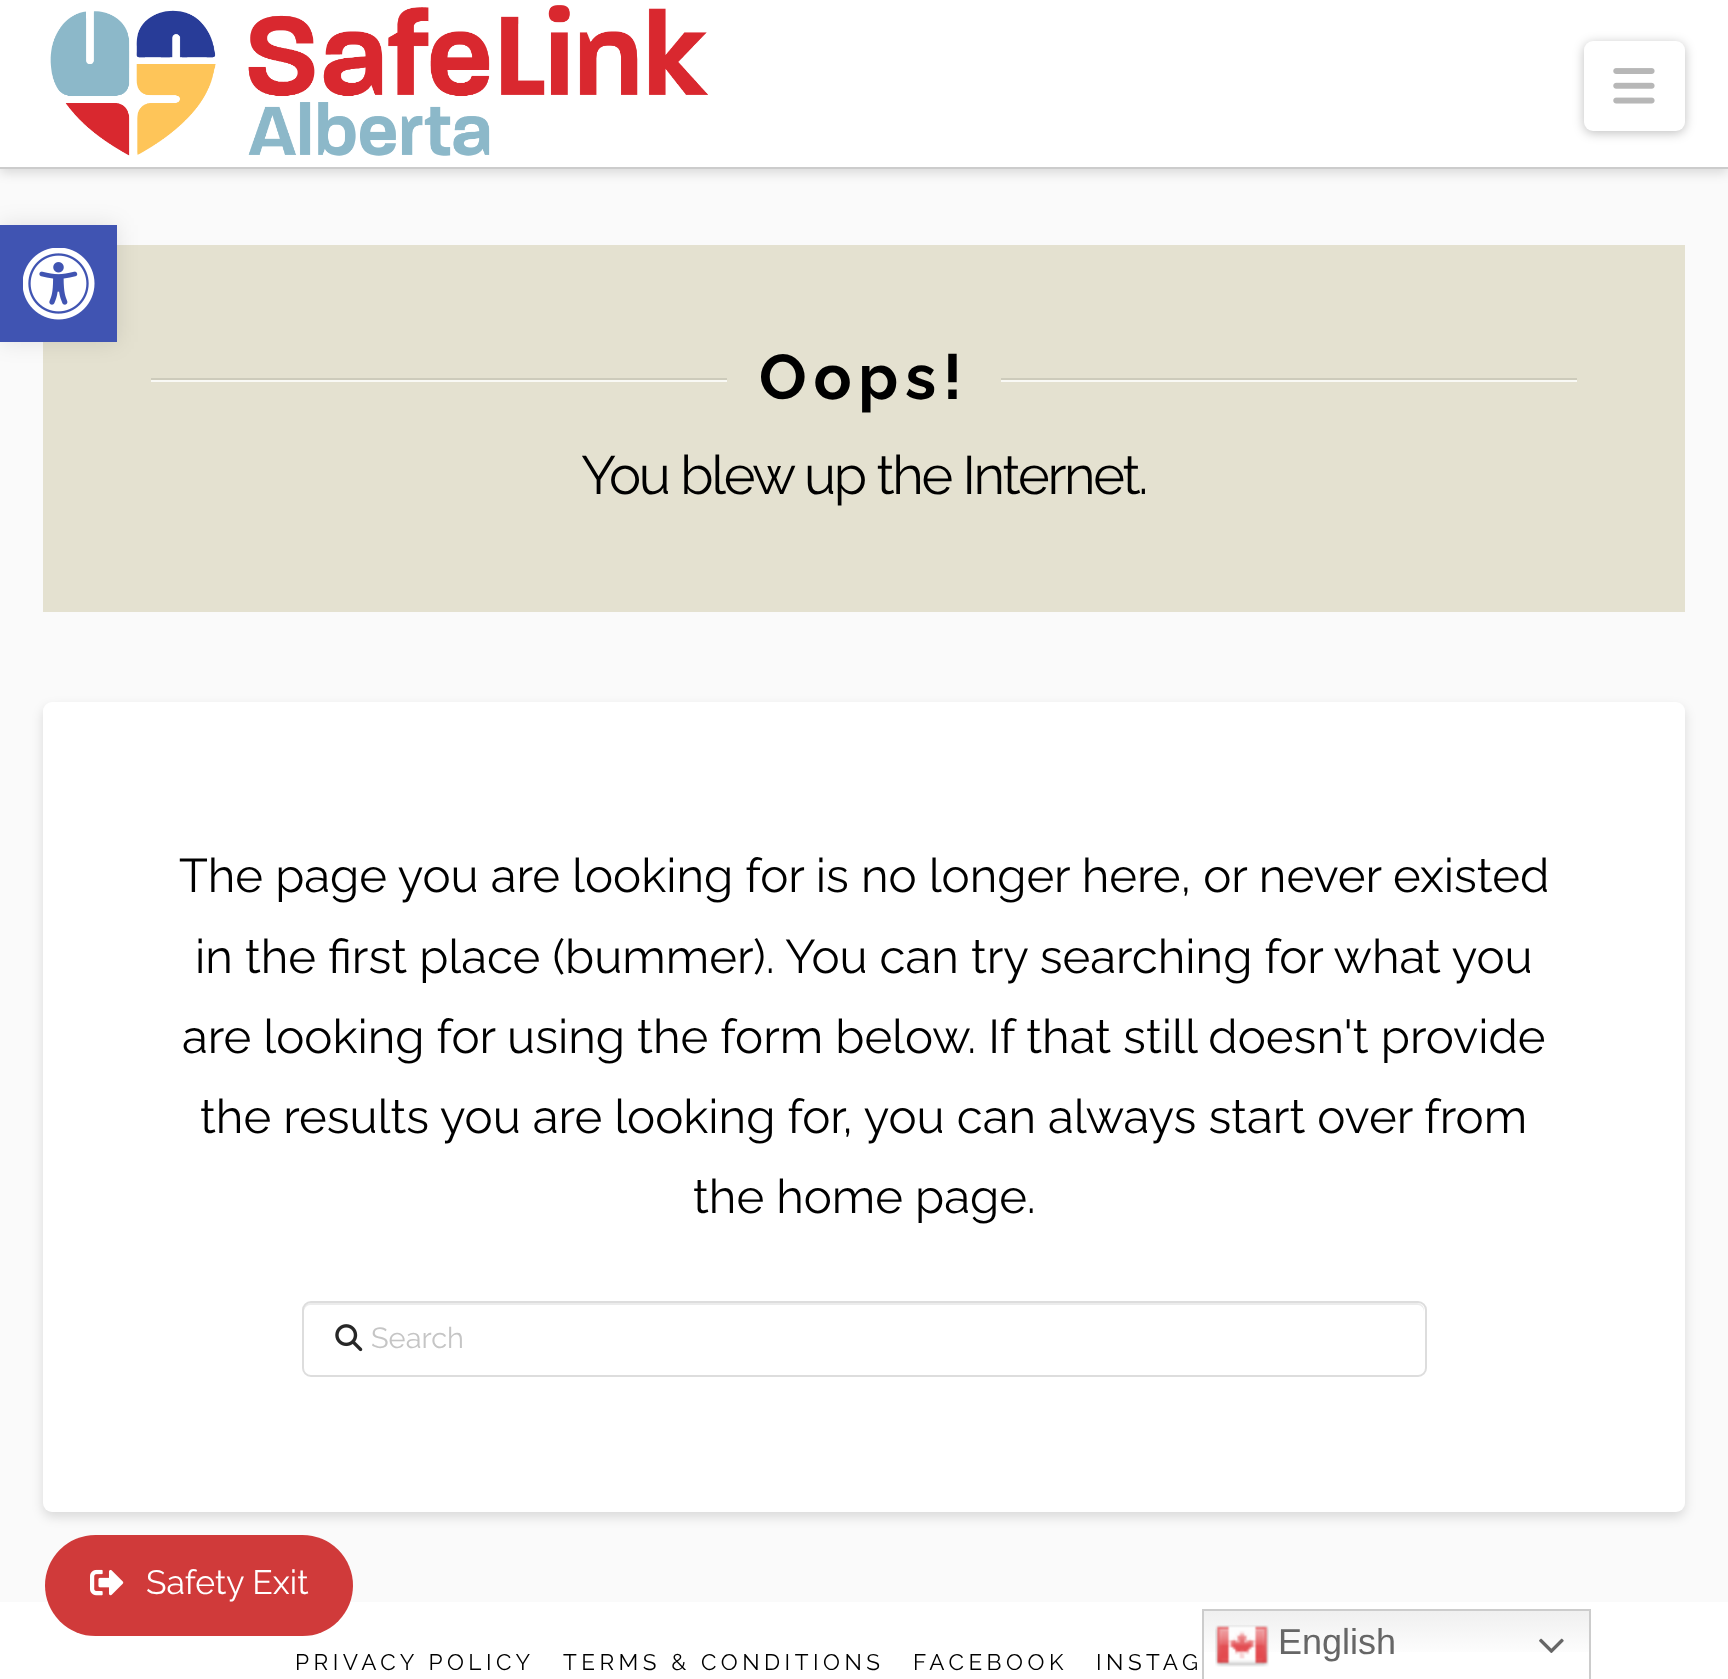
<!DOCTYPE html>
<meta charset="utf-8">
<style>body { margin: 0 } canvas { display: block }</style>
<canvas id="canvas" width="1728" height="1679"></canvas>
<script type="module">
  const canvas = document.getElementById("canvas");
  const g = canvas.getContext("2d");
  g.miterLimit = 4;
  g.fontKerning = "normal";
  function drawText(s, x, y, [font, color]) {
    g.font = font;
    g.fillStyle = color;
    g.fillText(s, x, y);
  }
  function fillBox(x, y, w, h, color) {
    g.fillStyle = color;
    g.fillRect(x, y, w, h);
  }
  function fillRounded(x, y, w, h, r, color) {
    g.fillStyle = color;
    g.beginPath();
    g.roundRect(x, y, w, h, r);
    g.fill();
  }
  async function drawPicture(src, x, y, w, h) {
    const img = new Image();
    img.src = src;
    await img.decode();
    g.drawImage(img, x, y, w, h);
  }
  let gradient;

  const s1 = ["bold 63px Raleway", "#000000"];
  const s2 = ["54px Raleway", "#000000"];
  const s3 = ["47.25px Raleway", "#000000"];
  const s4 = ["29px Raleway", "#C5C5C5"];
  const s5 = ["22.5px Raleway", "#000000"];
  const s6 = ["33.75px Raleway", "#FFFFFF"];
  const s7 = ["36px Liberation Sans", "#666666"];

  fillBox(0, 0, 1728, 1679, "#FAFAFA");
  fillBox(43, 245, 1642, 367, "#E4E1D0");
  g.fillStyle = "rgba(0, 0, 0, 0.1)";
  g.filter = "blur(11px)";
  g.beginPath();
  g.rect(0, 225, 117, 117);
  g.fill();
  g.filter = "none";
  fillBox(0, 225, 117, 117, "#4054B2");
  await drawPicture("pic1.png", 23, 248, 72, 72);
  g.fillStyle = "rgba(0, 0, 0, 0.13)";
  g.filter = "blur(5.5px)";
  g.beginPath();
  g.rect(0, 5, 1728, 168);
  g.fill();
  g.filter = "none";
  fillBox(0, 0, 1728, 167, "#FFFFFF");
  fillBox(0, 167, 1728, 2, "#CCCCCC");
  await drawPicture("pic2.png", 50, 5, 658, 151);
  g.fillStyle = "rgba(0, 0, 0, 0.25)";
  g.filter = "blur(5.5px)";
  g.beginPath();
  g.roundRect(1584, 43, 101, 90, 9);
  g.fill();
  g.filter = "none";
  fillRounded(1584, 41, 101, 90, 9, "#FFFFFF");
  await drawPicture("pic3.png", 1613, 68, 42, 36);
  fillBox(151, 380, 576, 2, "#F9F9F5");
  fillBox(151, 378, 576, 2, "#CDCBBB");
  g.letterSpacing = "6.75px";
  drawText("Oops!", 759, 399, s1);
  fillBox(1001, 380, 576, 2, "#F9F9F5");
  fillBox(1001, 378, 576, 2, "#CDCBBB");
  g.letterSpacing = "-2.25px";
  drawText("You blew up the Internet.", 581, 494, s2);
  g.fillStyle = "rgba(0, 0, 0, 0.13)";
  g.filter = "blur(5.5px)";
  g.beginPath();
  g.roundRect(43, 707, 1642, 810, 9);
  g.fill();
  g.filter = "none";
  fillRounded(43, 702, 1642, 810, 9, "#FFFFFF");
  g.letterSpacing = "0px";
  drawText("The page you are looking for is no longer here, or never existed", 179, 892, s3);
  drawText("in the first place (bummer). You can try searching for what you", 195, 973, s3);
  drawText("are looking for using the form below. If that still doesn't provide", 182, 1053, s3);
  drawText("the results you are looking for, you can always start over from", 200, 1133, s3);
  drawText("the home page.", 693, 1213, s3);
  g.fillStyle = "#ECECEC";
  g.beginPath();
  g.moveTo(310, 1305);
  g.lineTo(1418, 1305);
  g.bezierCurveTo(1421, 1305, 1424, 1308, 1424, 1312);
  g.lineTo(1424, 1310);
  g.bezierCurveTo(1424, 1306, 1421, 1303, 1417, 1303);
  g.lineTo(311, 1303);
  g.bezierCurveTo(307, 1303, 304, 1306, 304, 1310);
  g.lineTo(304, 1312);
  g.bezierCurveTo(304, 1308, 307, 1305, 310, 1305);
  g.closePath();
  g.fill();
  g.beginPath();
  g.roundRect(303, 1302, 1123, 74, 8);
  g.strokeStyle = "#DDDDDD";
  g.lineWidth = 2;
  g.stroke();
  await drawPicture("pic4.png", 335, 1324, 28, 28);
  drawText("Search", 371, 1348, s4);
  fillBox(0, 1602, 1728, 77, "#FFFFFF");
  g.letterSpacing = "4.5px";
  drawText("PRIVACY POLICY", 295, 1670, s5);
  drawText("TERMS & CONDITIONS", 563, 1670, s5);
  drawText("FACEBOOK", 913, 1670, s5);
  drawText("INSTAG", 1096, 1670, s5);
  fillRounded(45, 1535, 308, 101, 50.5, "#D03A3A");
  await drawPicture("pic5.png", 90, 1569, 34, 27);
  g.letterSpacing = "0px";
  drawText("Safety Exit", 146, 1594, s6);
  gradient = g.createLinearGradient(1396, 1609, 1396, 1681);
  gradient.addColorStop(0, "#EFEFEF");
  gradient.addColorStop(0.7, "#FFFFFF");
  g.fillStyle = gradient;
  g.fillRect(1204, 1611, 385, 41);
  g.strokeStyle = "#CCCCCC";
  g.strokeRect(1203, 1610, 387, 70);
  await drawPicture("pic6.png", 1215, 1625, 54, 42);
  drawText("English", 1278, 1654, s7);
  await drawPicture("pic7.png", 1539, 1638, 25, 15);
</script>
